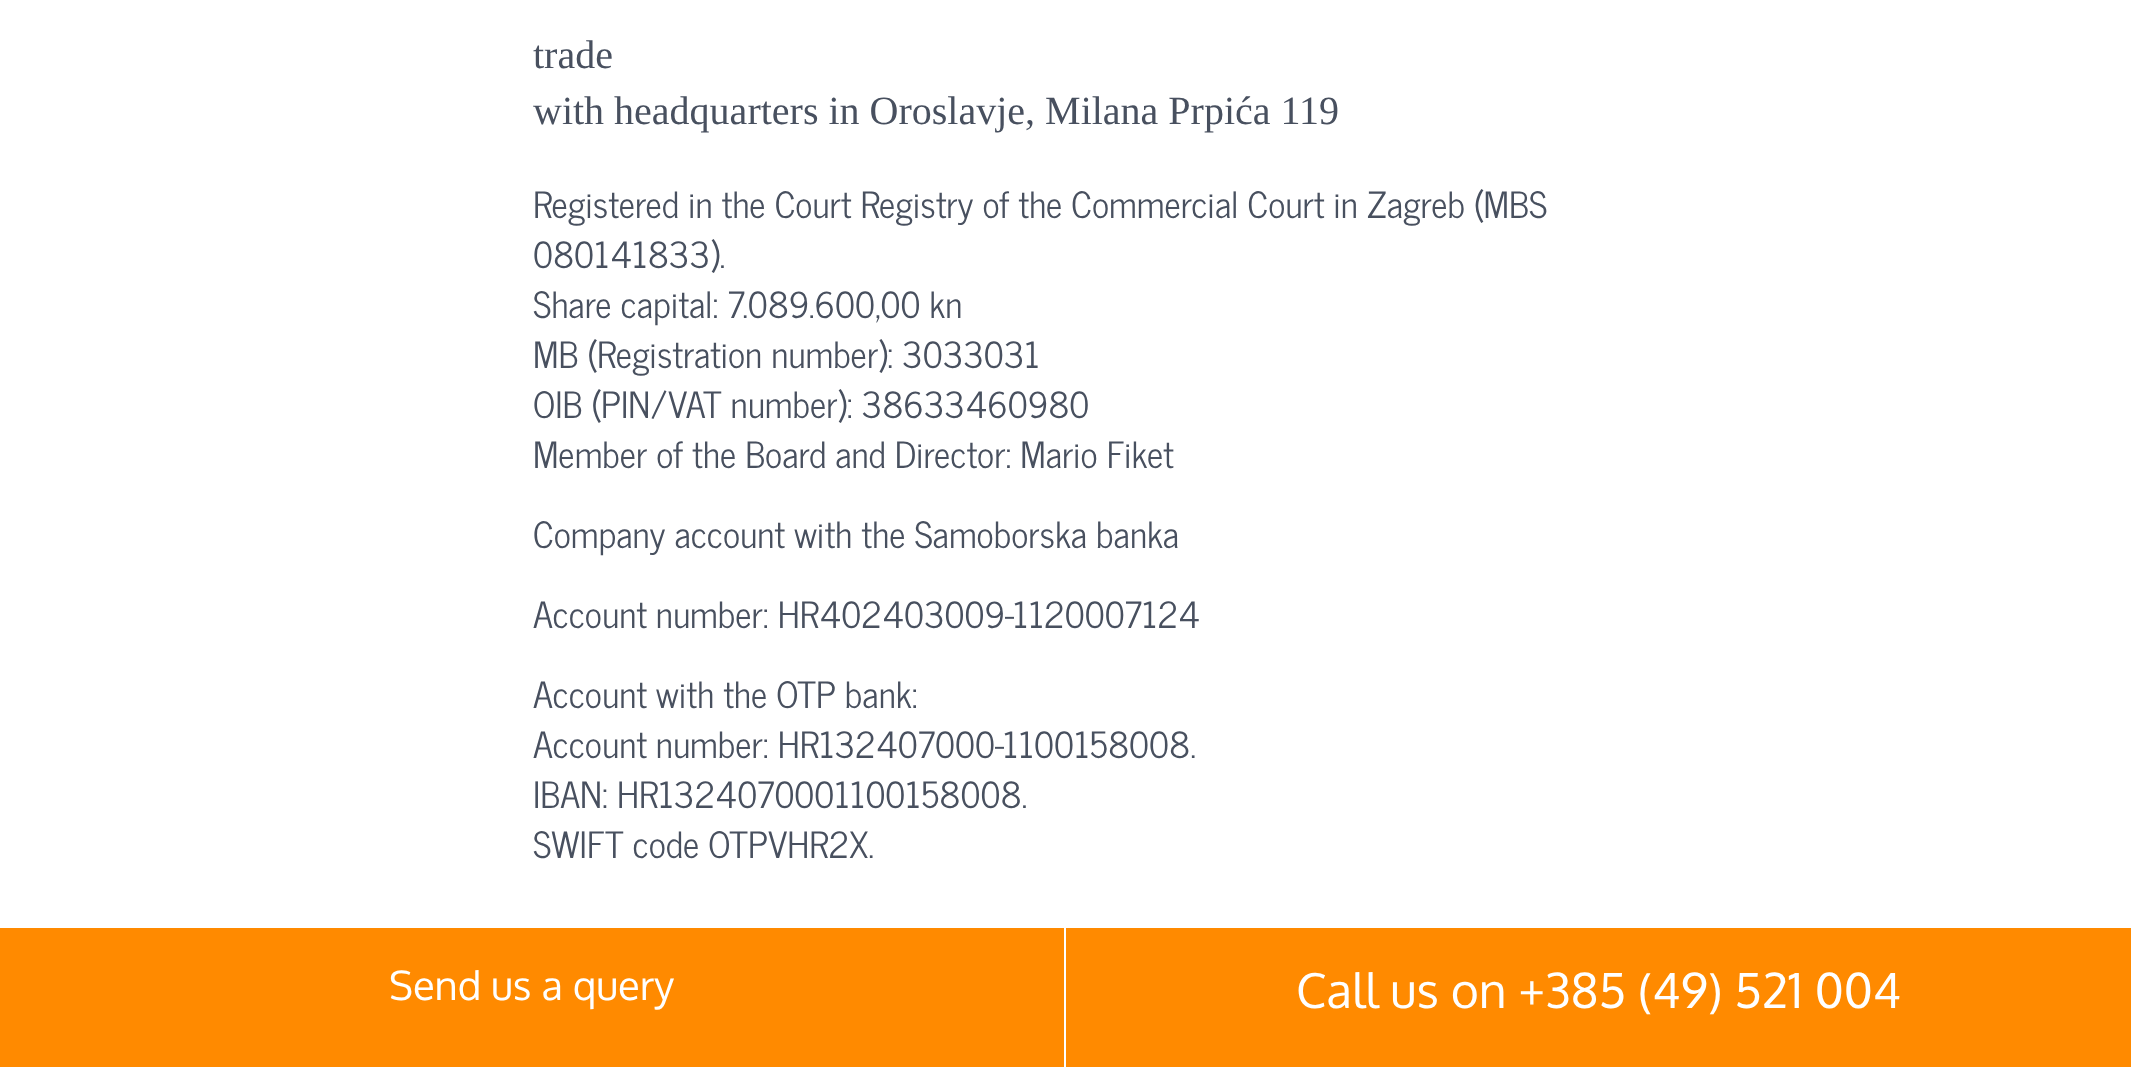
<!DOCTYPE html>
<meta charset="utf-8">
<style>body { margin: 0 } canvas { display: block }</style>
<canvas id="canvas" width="2131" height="1067"></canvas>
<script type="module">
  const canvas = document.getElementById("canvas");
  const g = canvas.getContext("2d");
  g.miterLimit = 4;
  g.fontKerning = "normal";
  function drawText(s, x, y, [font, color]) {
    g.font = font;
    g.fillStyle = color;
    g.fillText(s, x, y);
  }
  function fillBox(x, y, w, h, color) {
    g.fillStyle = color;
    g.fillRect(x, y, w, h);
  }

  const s1 = ["40px Liberation Serif", "#48505F"];
  const s2 = ["36px News Cycle", "#48505F"];
  const s3 = ["40px Oxygen", "#FFFFFF"];
  const s4 = ["48px Oxygen", "#FFFFFF"];

  fillBox(0, 0, 2131, 1067, "#FFFFFF");
  drawText("trade", 533, 68, s1);
  drawText("with headquarters in Oroslavje, Milana Prpića 119", 533, 124, s1);
  drawText("Registered in the Court Registry of the Commercial Court in Zagreb (MBS", 533, 218, s2);
  drawText("080141833).", 533, 268, s2);
  drawText("Share capital: 7.089.600,00 kn", 533, 318, s2);
  drawText("MB (Registration number): 3033031", 533, 368, s2);
  drawText("OIB (PIN/VAT number): 38633460980", 533, 418, s2);
  drawText("Member of the Board and Director: Mario Fiket", 533, 468, s2);
  drawText("Company account with the Samoborska banka", 533, 548, s2);
  drawText("Account number: HR402403009-1120007124", 533, 628, s2);
  drawText("Account with the OTP bank:", 533, 708, s2);
  drawText("Account number: HR132407000-1100158008.", 533, 758, s2);
  drawText("IBAN: HR1324070001100158008.", 533, 808, s2);
  drawText("SWIFT code OTPVHR2X.", 533, 858, s2);
  fillBox(0, 928, 1064, 139, "#FF8A00");
  drawText("Send us a query", 389, 1000, s3);
  fillBox(1066, 928, 1065, 139, "#FF8A00");
  drawText("Call us on +385 (49) 521 004", 1296, 1008, s4);
</script>
